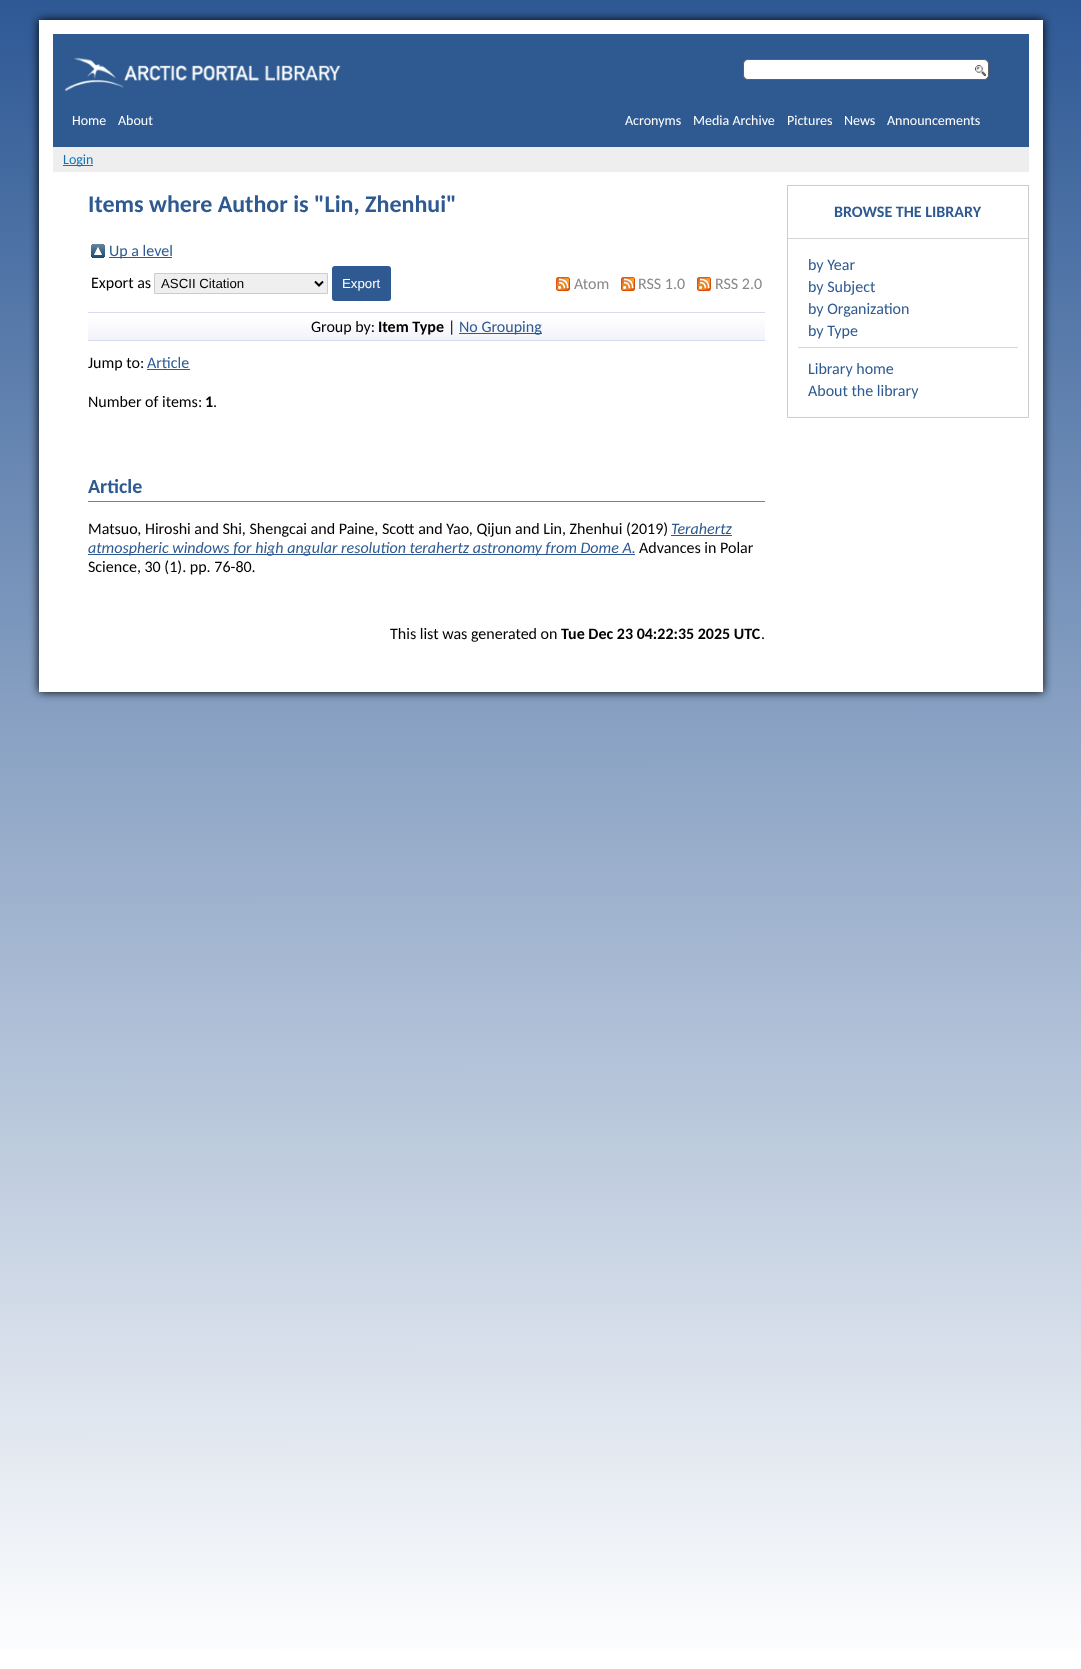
<!DOCTYPE html>
<meta charset="utf-8">
<style>body { margin: 0 } canvas { display: block }</style>
<canvas id="canvas" width="1081" height="1669"></canvas>
<script type="module">
  const canvas = document.getElementById("canvas");
  const g = canvas.getContext("2d");
  g.miterLimit = 4;
  g.fontKerning = "normal";
  function drawText(s, x, y, [font, color]) {
    g.font = font;
    g.fillStyle = color;
    g.fillText(s, x, y);
  }
  function fillBox(x, y, w, h, color) {
    g.fillStyle = color;
    g.fillRect(x, y, w, h);
  }
  function fillRounded(x, y, w, h, r, color) {
    g.fillStyle = color;
    g.beginPath();
    g.roundRect(x, y, w, h, r);
    g.fill();
  }
  async function drawPicture(src, x, y, w, h) {
    const img = new Image();
    img.src = src;
    await img.decode();
    g.drawImage(img, x, y, w, h);
  }
  let gradient;

  const s1 = ["14px Carlito", "#FFFFFF"];
  const s2 = ["14px Carlito", "#1073B5"];
  const s3 = ["bold 24px Carlito", "#2E5A91"];
  const s4 = ["16px Carlito", "#2E5A91"];
  const s5 = ["16px Carlito", "#000000"];
  const s6 = ["13.25px Liberation Sans", "#000000"];
  const s7 = ["13.25px Liberation Sans", "#FFFFFF"];
  const s8 = ["16px Carlito", "#888888"];
  const s9 = ["bold 16px Carlito", "#000000"];
  const s10 = ["bold 20px Carlito", "#2E5A91"];
  const s11 = ["italic 16px Carlito", "#2E5A91"];
  const s12 = ["bold 16px Carlito", "#2E5A91"];

  fillBox(0, 0, 1081, 1669, "#FFFFFF");
  gradient = g.createLinearGradient(540, 0, 541, 1669);
  gradient.addColorStop(0, "#2E5995");
  gradient.addColorStop(1, "#FFFFFF");
  g.fillStyle = gradient;
  g.fillRect(0, 0, 1081, 1649);
  g.fillStyle = "#000000";
  g.filter = "blur(5px)";
  g.beginPath();
  g.rect(39, 20, 1004, 672);
  g.fill();
  g.filter = "none";
  fillBox(39, 20, 1004, 672, "#FFFFFF");
  fillBox(53, 34, 976, 113, "#2E5A91");
  await drawPicture("pic1.png", 64, 57, 277, 35);
  g.fillStyle = "#FFFFFF";
  g.beginPath();
  g.roundRect(743.5, 59.5, 245, 20, 4.5);
  g.fill();
  g.strokeStyle = "#606060";
  g.stroke();
  await drawPicture("pic2.png", 975, 65, 11, 11);
  drawText("Home", 72, 125, s1);
  drawText("About", 118, 125, s1);
  drawText("Acronyms", 625, 125, s1);
  drawText("Media Archive", 693, 125, s1);
  drawText("Pictures", 787, 125, s1);
  drawText("News", 844, 125, s1);
  drawText("Announcements", 887, 125, s1);
  fillBox(53, 147, 976, 25, "#EEEEEE");
  fillBox(63, 165, 30, 1, "#1073B5");
  drawText("Login", 63, 164, s2);
  drawText("Items where Author is \"Lin, Zhenhui\"", 88, 212, s3);
  await drawPicture("pic3.png", 91, 244, 14, 14);
  fillBox(109, 257, 63, 1, "#2E5A91");
  drawText("Up a level", 109, 256, s4);
  drawText("Export as", 91, 288, s5);
  g.fillStyle = "#EFEFEF";
  g.beginPath();
  g.rect(154.5, 273.5, 173, 20);
  g.fill();
  g.strokeStyle = "#CCCCCC";
  g.stroke();
  g.beginPath();
  g.moveTo(315, 281.5);
  g.lineTo(319, 285.5);
  g.lineTo(323, 281.5);
  g.strokeStyle = "#000000";
  g.lineWidth = 2;
  g.stroke();
  drawText("ASCII Citation", 161, 288, s6);
  fillRounded(332, 266, 59, 35, 3, "#2E5A91");
  drawText("Export", 342, 288, s7);
  await drawPicture("pic4.png", 556, 277, 14, 14);
  drawText("Atom", 574, 289, s8);
  await drawPicture("pic4.png", 621, 277, 14, 14);
  drawText("RSS 1.0", 638, 289, s8);
  await drawPicture("pic4.png", 697, 277, 14, 14);
  drawText("RSS 2.0", 715, 289, s8);
  await drawPicture("pic5.png", 88, 313, 677, 27);
  fillBox(88, 312, 677, 1, "#D8DBEF");
  fillBox(88, 340, 677, 1, "#D8DBEF");
  drawText("Group by:", 311, 332, s5);
  drawText("Item Type", 378, 332, s9);
  drawText("|", 448, 332, s5);
  fillBox(459, 333, 83, 1, "#2E5A91");
  drawText("No Grouping", 459, 332, s4);
  drawText("Jump to:", 88, 368, s5);
  drawText("Article", 147, 368, s4);
  fillBox(147, 369, 43, 1, "#2E5A91");
  drawText("Number of items:", 88, 407, s5);
  drawText("1", 205, 407, s9);
  drawText(".", 213, 407, s5);
  fillBox(88, 501, 677, 1, "#808080");
  drawText("Article", 88, 493, s10);
  drawText("Matsuo, Hiroshi and Shi, Shengcai and Paine, Scott and Yao, Qijun and Lin, Zhenhui (2019)", 88, 534, s5);
  drawText("Terahertz", 671, 534, s11);
  fillBox(671, 535, 61, 1, "#2E5A91");
  fillBox(88, 554, 547, 1, "#2E5A91");
  drawText("atmospheric windows for high angular resolution terahertz astronomy from Dome A.", 88, 553, s11);
  drawText("Advances in Polar", 639, 553, s5);
  drawText("Science, 30 (1). pp. 76-80.", 88, 572, s5);
  drawText("This list was generated on", 390, 639, s5);
  drawText("Tue Dec 23 04:22:35 2025 UTC", 561, 639, s9);
  drawText(".", 761, 639, s5);
  g.strokeStyle = "#CDCDCD";
  g.lineWidth = 1;
  g.strokeRect(787.5, 185.5, 241, 232);
  fillBox(788, 238, 240, 1, "#D6D6D6");
  drawText("BROWSE THE LIBRARY", 834, 217, s12);
  drawText("by Year", 808, 270, s4);
  drawText("by Subject", 808, 292, s4);
  drawText("by Organization", 808, 314, s4);
  drawText("by Type", 808, 336, s4);
  fillBox(798, 347, 220, 1, "#D6D6D6");
  drawText("Library home", 808, 374, s4);
  drawText("About the library", 808, 396, s4);
</script>
